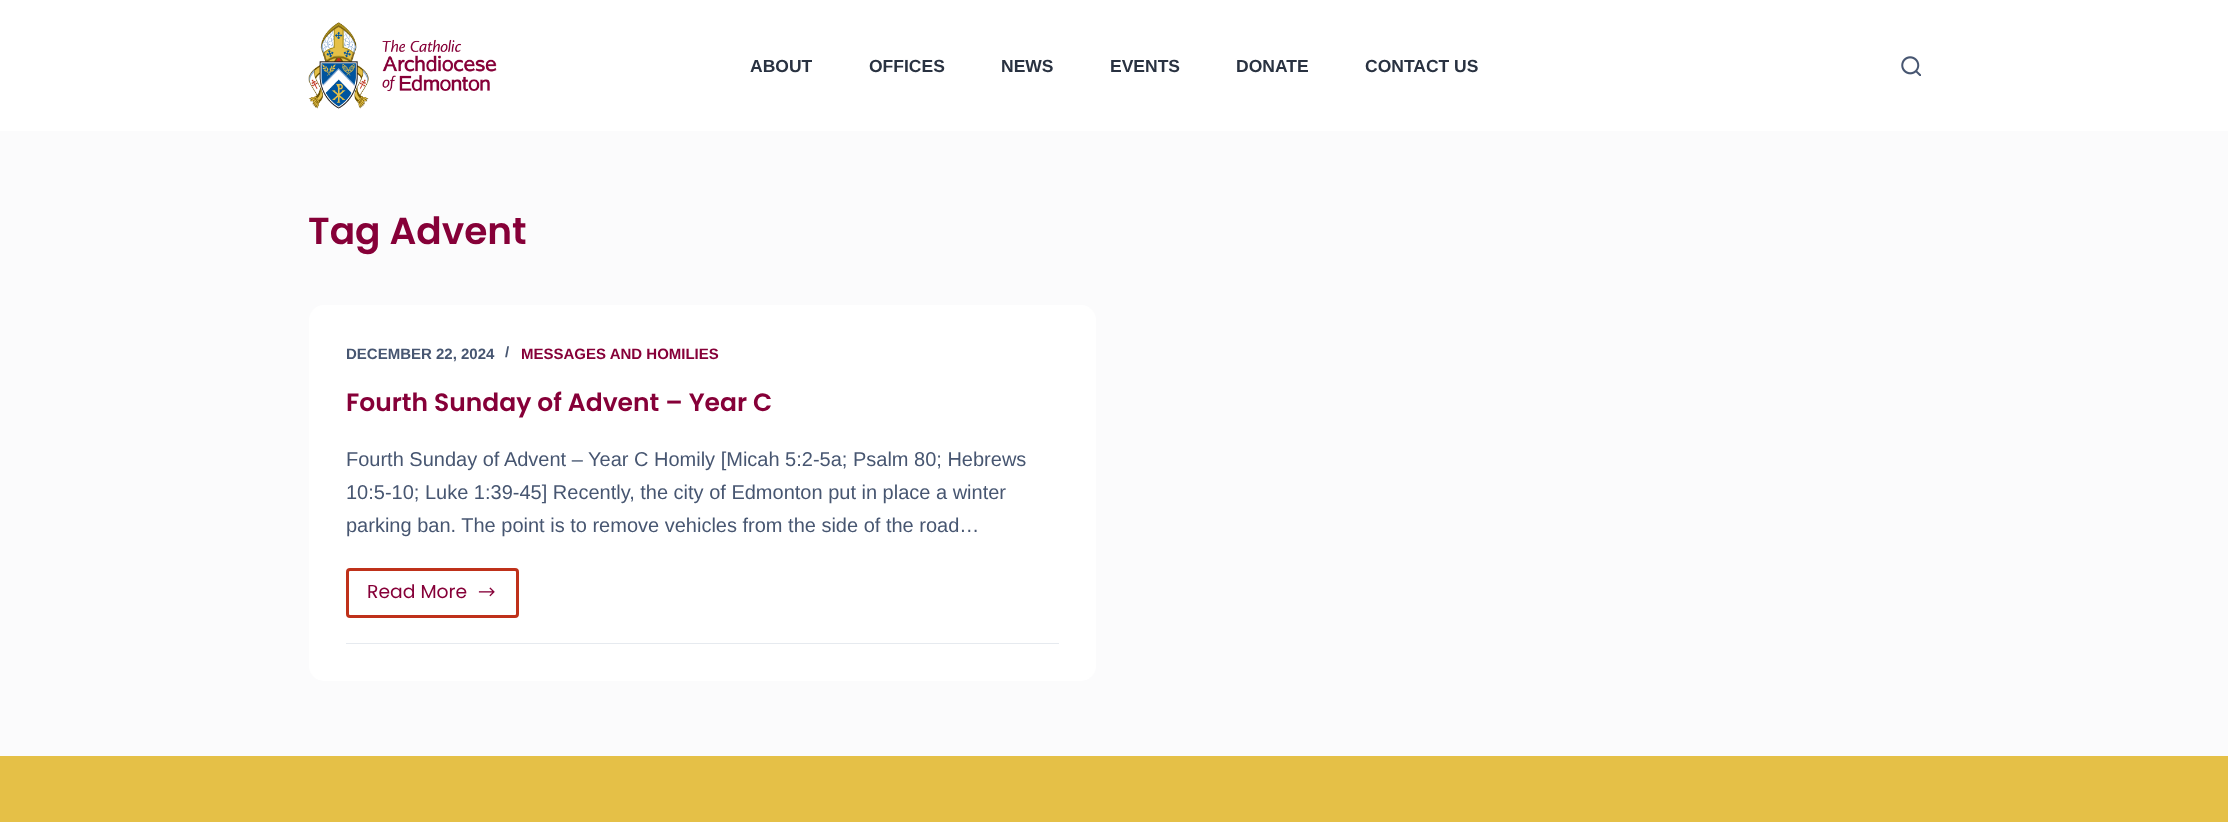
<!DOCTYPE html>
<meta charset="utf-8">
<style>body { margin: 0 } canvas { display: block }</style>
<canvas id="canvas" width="2228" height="822"></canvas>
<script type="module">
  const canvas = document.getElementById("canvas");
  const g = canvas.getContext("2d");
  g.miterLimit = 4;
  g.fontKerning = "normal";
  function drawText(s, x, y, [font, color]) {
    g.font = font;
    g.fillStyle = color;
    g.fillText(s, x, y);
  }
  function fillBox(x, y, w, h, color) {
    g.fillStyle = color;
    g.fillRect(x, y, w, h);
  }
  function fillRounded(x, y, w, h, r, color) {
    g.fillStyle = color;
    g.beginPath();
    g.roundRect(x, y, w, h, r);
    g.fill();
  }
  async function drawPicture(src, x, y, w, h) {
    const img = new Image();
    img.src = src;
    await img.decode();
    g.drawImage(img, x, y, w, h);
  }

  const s1 = ["bold 17.5px Liberation Sans", "#293241"];
  const s2 = ["600 37.5px Poppins", "#860038"];
  const s3 = ["bold 15px Liberation Sans", "#475671"];
  const s4 = ["bold 15px Liberation Sans", "#860038"];
  const s5 = ["600 25px Poppins", "#860038"];
  const s6 = ["20px Liberation Sans", "#475671"];
  const s7 = ["18.75px Poppins", "#860038"];

  fillBox(0, 0, 2228, 822, "#FBFBFC");
  fillBox(0, 0, 2228, 131, "#FFFFFF");
  await drawPicture("pic1.png", 308, 22, 189, 87);
  drawText("ABOUT", 750, 72, s1);
  drawText("OFFICES", 869, 72, s1);
  drawText("NEWS", 1001, 72, s1);
  drawText("EVENTS", 1110, 72, s1);
  drawText("DONATE", 1236, 72, s1);
  drawText("CONTACT US", 1365, 72, s1);
  await drawPicture("pic2.png", 1901, 56, 20, 20);
  drawText("Tag Advent", 308, 244, s2);
  fillRounded(309, 305, 787, 376, 15, "#FFFFFF");
  drawText("DECEMBER 22, 2024", 346, 359, s3);
  drawText("/", 505, 357, s3);
  drawText("MESSAGES AND HOMILIES", 521, 359, s4);
  drawText("Fourth Sunday of Advent – Year C", 346, 411, s5);
  drawText("Fourth Sunday of Advent – Year C Homily [Micah 5:2-5a; Psalm 80; Hebrews", 346, 466, s6);
  drawText("10:5-10; Luke 1:39-45] Recently, the city of Edmonton put in place a winter", 346, 499, s6);
  drawText("parking ban. The point is to remove vehicles from the side of the road…", 346, 532, s6);
  g.beginPath();
  g.roundRect(347.5, 569.5, 170, 47, 2.5);
  g.strokeStyle = "#BF311A";
  g.lineWidth = 3;
  g.stroke();
  drawText("Read More", 367, 598, s7);
  await drawPicture("pic3.png", 478, 587, 17, 10);
  fillBox(346, 643, 713, 1, "#E6EAEF");
  fillBox(0, 756, 2228, 66, "#E5C047");
</script>
